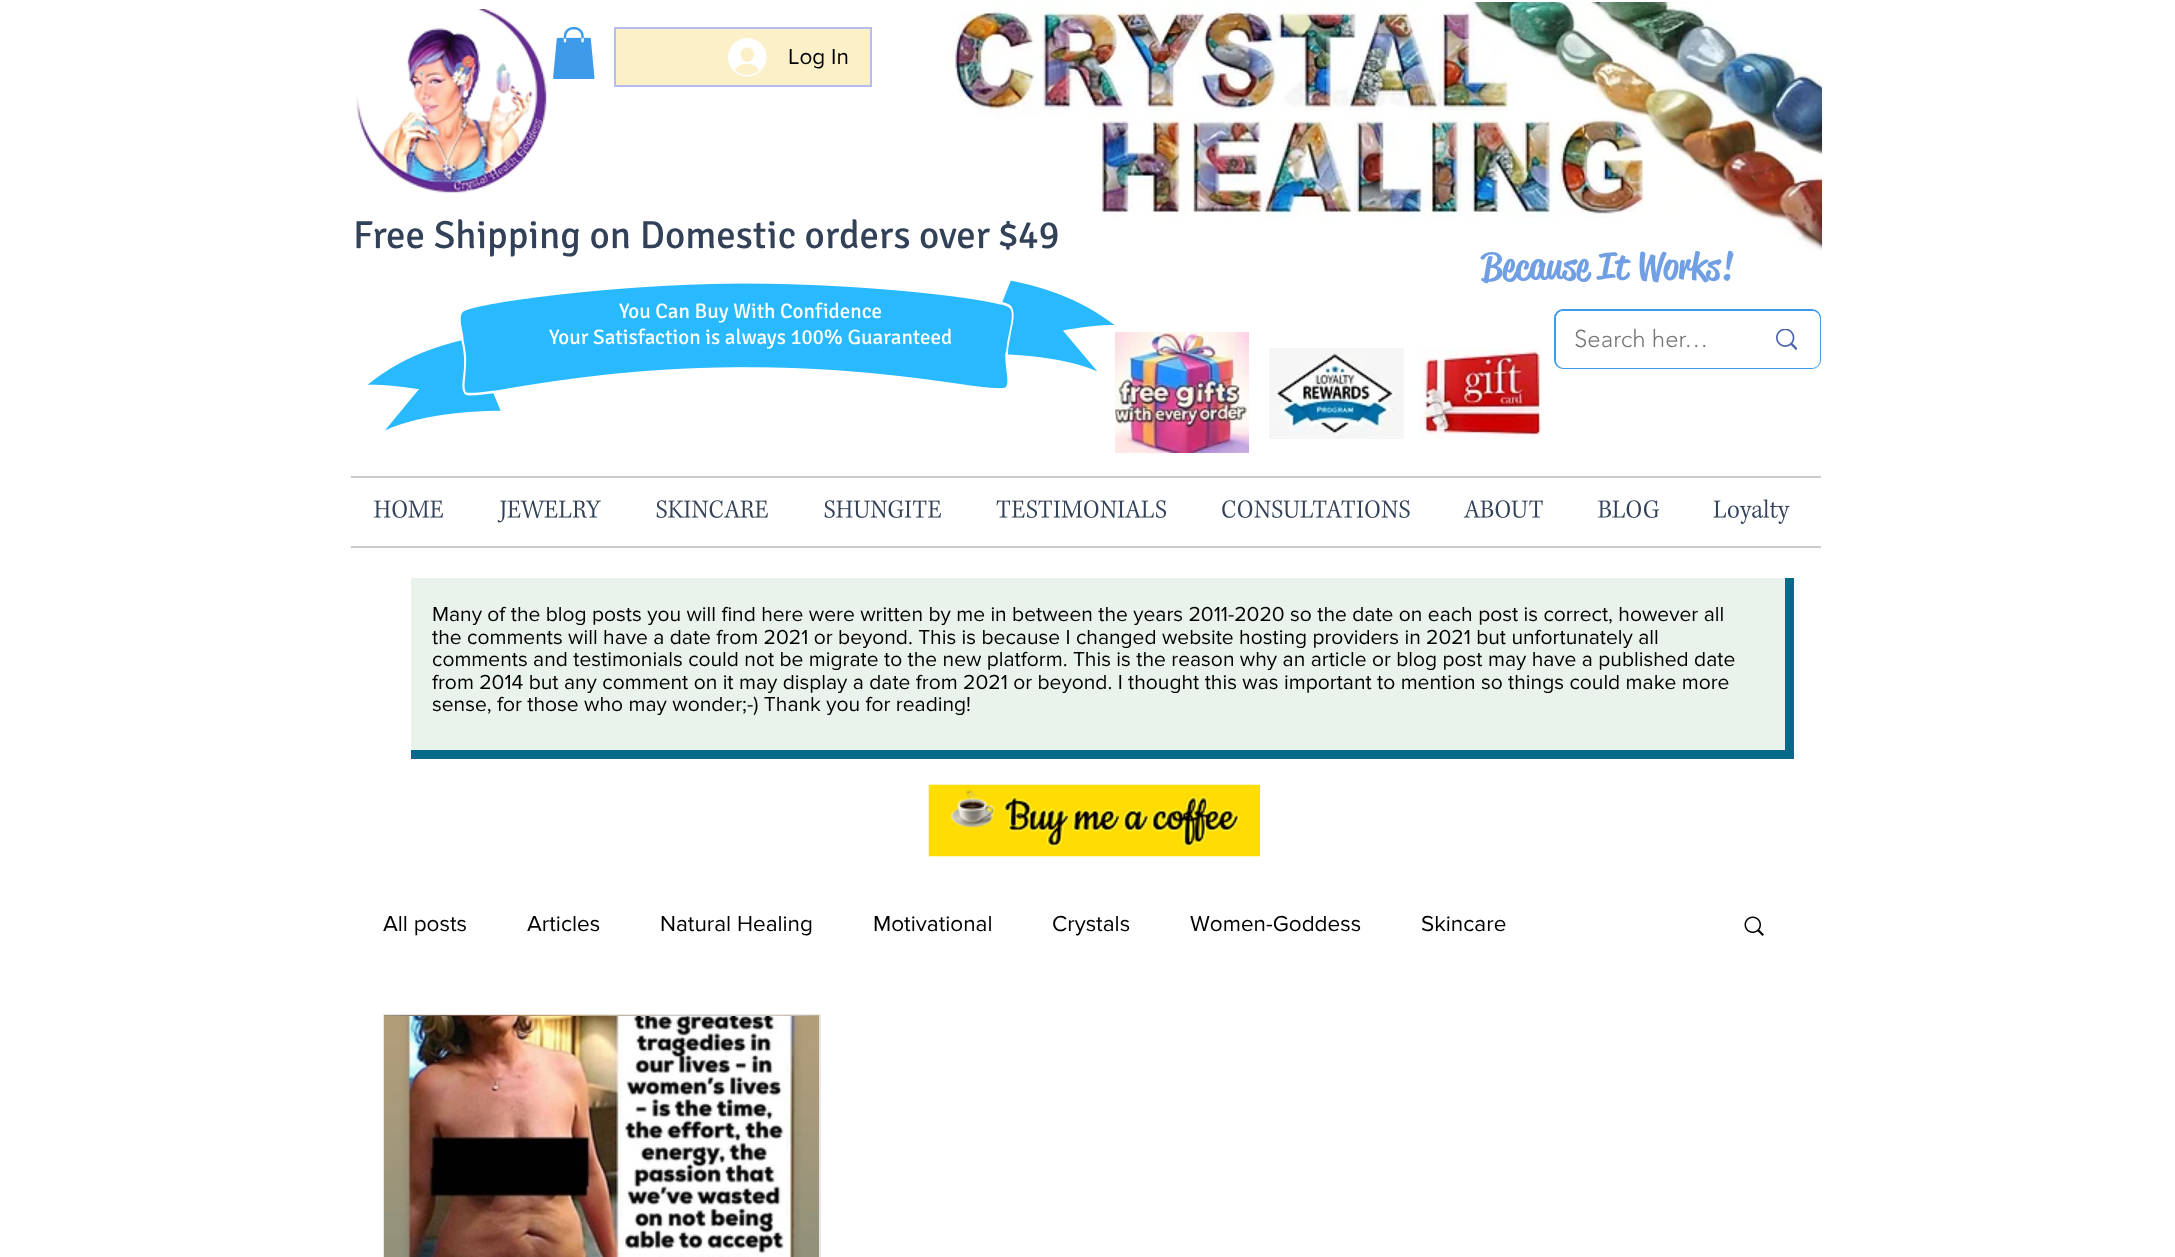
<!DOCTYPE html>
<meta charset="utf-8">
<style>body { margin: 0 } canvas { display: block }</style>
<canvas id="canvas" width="2175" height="1257"></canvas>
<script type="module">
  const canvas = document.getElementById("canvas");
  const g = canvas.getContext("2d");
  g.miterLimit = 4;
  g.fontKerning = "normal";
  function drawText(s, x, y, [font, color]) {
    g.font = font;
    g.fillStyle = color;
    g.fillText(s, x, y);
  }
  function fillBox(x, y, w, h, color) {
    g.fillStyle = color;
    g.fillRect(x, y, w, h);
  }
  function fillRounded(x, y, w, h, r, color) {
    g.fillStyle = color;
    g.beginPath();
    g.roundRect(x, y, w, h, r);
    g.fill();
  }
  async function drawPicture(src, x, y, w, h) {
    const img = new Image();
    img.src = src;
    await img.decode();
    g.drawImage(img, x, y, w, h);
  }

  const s1 = ["22.5px 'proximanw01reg'", "#000000"];
  const s2 = ["39px Signika", "#324158"];
  const s3 = ["500 37.5px 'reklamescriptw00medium'", "#719FE3"];
  const s4 = ["21px Signika", "#FFFFFF"];
  const s5 = ["300 24px 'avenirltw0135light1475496'", "#787878"];
  const s6 = ["21px 'proximanw01reg'", "#000000"];

  fillBox(0, 0, 2175, 1257, "#FFFFFF");
  await drawPicture("pic1.png", 356, 9, 191, 184);
  await drawPicture("pic2.png", 553, 27, 42, 52);
  g.fillStyle = "#FBF0C8";
  g.beginPath();
  g.rect(615, 28, 256, 58);
  g.fill();
  g.strokeStyle = "#B5BCF0";
  g.lineWidth = 2;
  g.stroke();
  await drawPicture("pic3.png", 728, 38, 39, 39);
  drawText("Log In", 788, 64, s1);
  await drawPicture("pic4.png", 949, 2, 874, 249);
  drawText("Free Shipping on Domestic orders over $49", 353, 248, s2);
  drawText("Because It Works!", 1481, 279, s3);
  await drawPicture("pic5.png", 367, 280, 748, 151);
  drawText("You Can Buy With Confidence", 619, 318, s4);
  drawText("Your Satisfaction is always 100% Guaranteed", 549, 344, s4);
  await drawPicture("pic6.png", 1115, 332, 134, 121);
  await drawPicture("pic7.png", 1269, 348, 135, 91);
  await drawPicture("pic8.png", 1419, 348, 124, 91);
  g.beginPath();
  g.roundRect(1555, 310, 265, 58, 8);
  g.strokeStyle = "#3D9BE9";
  g.stroke();
  fillRounded(1556, 311, 264, 57, 8, "#FFFFFF");
  drawText("Search her…", 1574, 347, s5);
  await drawPicture("pic9.png", 1776, 329, 21, 21);
  fillBox(351, 476, 1470, 2, "#CACACA");
  fillBox(351, 546, 1470, 2, "#CACACA");
  await drawPicture("pic10.png", 374, 500, 69, 18);
  await drawPicture("pic11.png", 497, 500, 104, 23);
  await drawPicture("pic12.png", 656, 500, 112, 18);
  await drawPicture("pic13.png", 824, 500, 117, 18);
  await drawPicture("pic14.png", 996, 500, 171, 18);
  await drawPicture("pic15.png", 1222, 500, 188, 18);
  await drawPicture("pic16.png", 1463, 500, 80, 18);
  await drawPicture("pic17.png", 1598, 500, 61, 18);
  await drawPicture("pic18.png", 1713, 499, 77, 25);
  g.fillStyle = "#066B8A";
  g.beginPath();
  g.moveTo(411, 750);
  g.lineTo(411, 759);
  g.lineTo(1794, 759);
  g.lineTo(1794, 578);
  g.lineTo(1785, 578);
  g.lineTo(1785, 750);
  g.closePath();
  g.fill();
  fillBox(411, 578, 1374, 172, "#E9F3EC");
  drawText("Many of the blog posts you will find here were written by me in between the years 2011-2020 so the date on each post is correct, however all", 432, 621, s6);
  drawText("the comments will have a date from 2021 or beyond. This is because I changed website hosting providers in 2021 but unfortunately all", 432, 644, s6);
  drawText("comments and testimonials could not be migrate to the new platform. This is the reason why an article or blog post may have a published date", 432, 666, s6);
  drawText("from 2014 but any comment on it may display a date from 2021 or beyond. I thought this was important to mention so things could make more", 432, 689, s6);
  drawText("sense, for those who may wonder;-) Thank you for reading!", 432, 711, s6);
  await drawPicture("pic19.png", 928, 784, 332, 73);
  drawText("All posts", 383, 931, s1);
  drawText("Articles", 527, 931, s1);
  drawText("Natural Healing", 660, 931, s1);
  drawText("Motivational", 873, 931, s1);
  drawText("Crystals", 1052, 931, s1);
  drawText("Women-Goddess", 1190, 931, s1);
  drawText("Skincare", 1421, 931, s1);
  await drawPicture("pic20.png", 1744, 916, 20, 20);
  g.strokeStyle = "#E8E6E6";
  g.strokeRect(384, 1015, 436, 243);
  await drawPicture("pic21.png", 384, 1015, 435, 1);
  await drawPicture("pic22.png", 384, 1016, 435, 241);
</script>
